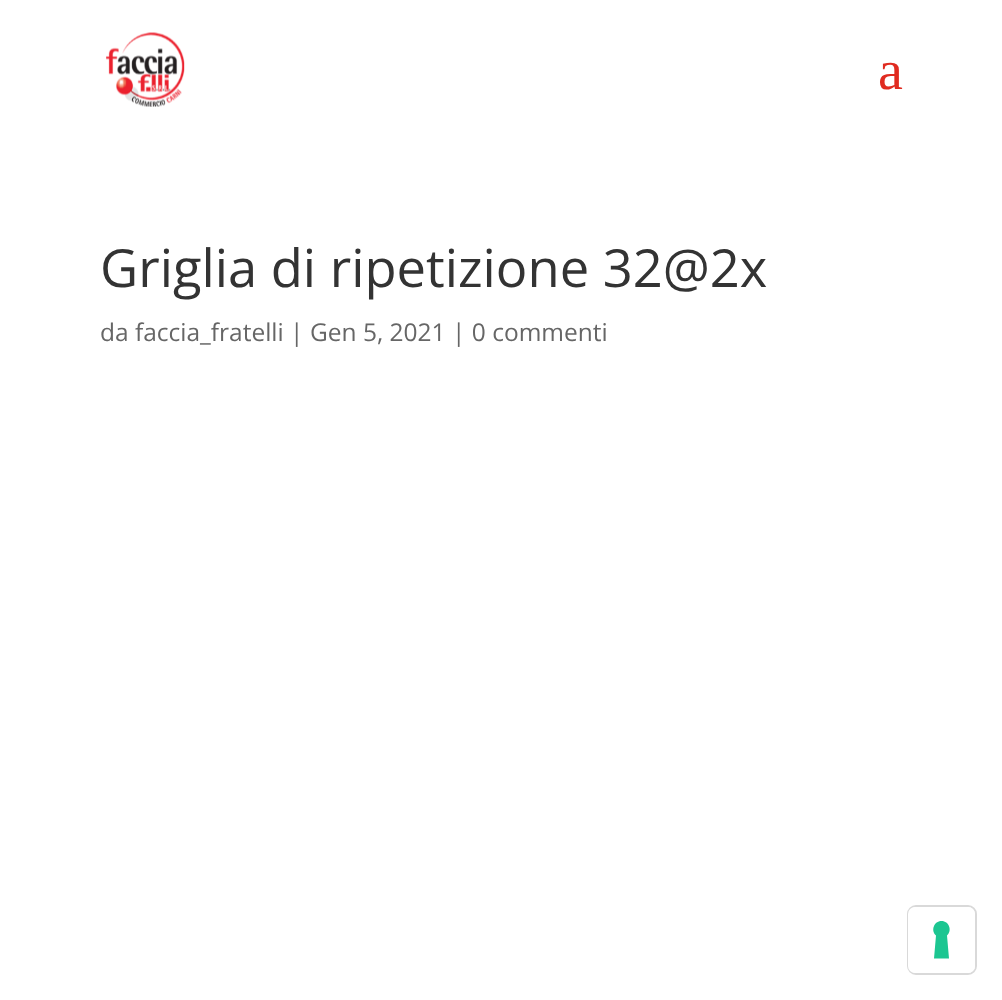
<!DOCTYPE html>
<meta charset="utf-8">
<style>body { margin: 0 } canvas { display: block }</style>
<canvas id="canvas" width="1002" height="1000"></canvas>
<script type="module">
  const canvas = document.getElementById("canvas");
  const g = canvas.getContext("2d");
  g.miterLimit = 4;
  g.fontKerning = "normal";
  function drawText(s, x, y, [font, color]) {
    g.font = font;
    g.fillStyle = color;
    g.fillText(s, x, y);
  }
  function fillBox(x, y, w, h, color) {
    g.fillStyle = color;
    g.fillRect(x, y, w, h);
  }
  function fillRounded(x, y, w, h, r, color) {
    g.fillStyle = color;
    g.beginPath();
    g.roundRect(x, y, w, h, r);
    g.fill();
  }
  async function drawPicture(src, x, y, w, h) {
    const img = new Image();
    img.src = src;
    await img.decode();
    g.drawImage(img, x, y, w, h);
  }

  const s1 = ["56px Liberation Serif", "#E02B20"];
  const s2 = ["52.5px Open Sans", "#333333"];
  const s3 = ["24.5px Open Sans", "#666666"];

  fillBox(0, 0, 1002, 1000, "#FFFFFF");
  await drawPicture("pic1.png", 106, 32, 79, 75);
  drawText("a", 878, 89, s1);
  drawText("Griglia di ripetizione 32@2x", 100, 287, s2);
  drawText("da faccia_fratelli | Gen 5, 2021 | 0 commenti", 100, 341, s3);
  g.beginPath();
  g.roundRect(908, 906, 68, 68, 8);
  g.strokeStyle = "#D9D9D9";
  g.lineWidth = 2;
  g.stroke();
  fillRounded(908, 907, 67, 66, 7, "#FFFFFF");
  g.fillStyle = "#1CC691";
  g.beginPath();
  g.moveTo(941.5, 921);
  g.bezierCurveTo(949, 921, 952.5, 930.5, 947, 935.5);
  g.lineTo(949, 958.5);
  g.lineTo(934, 958.5);
  g.lineTo(936, 935.5);
  g.bezierCurveTo(930.5, 930.5, 934, 921, 941.5, 921);
  g.closePath();
  g.fill("evenodd");
</script>
